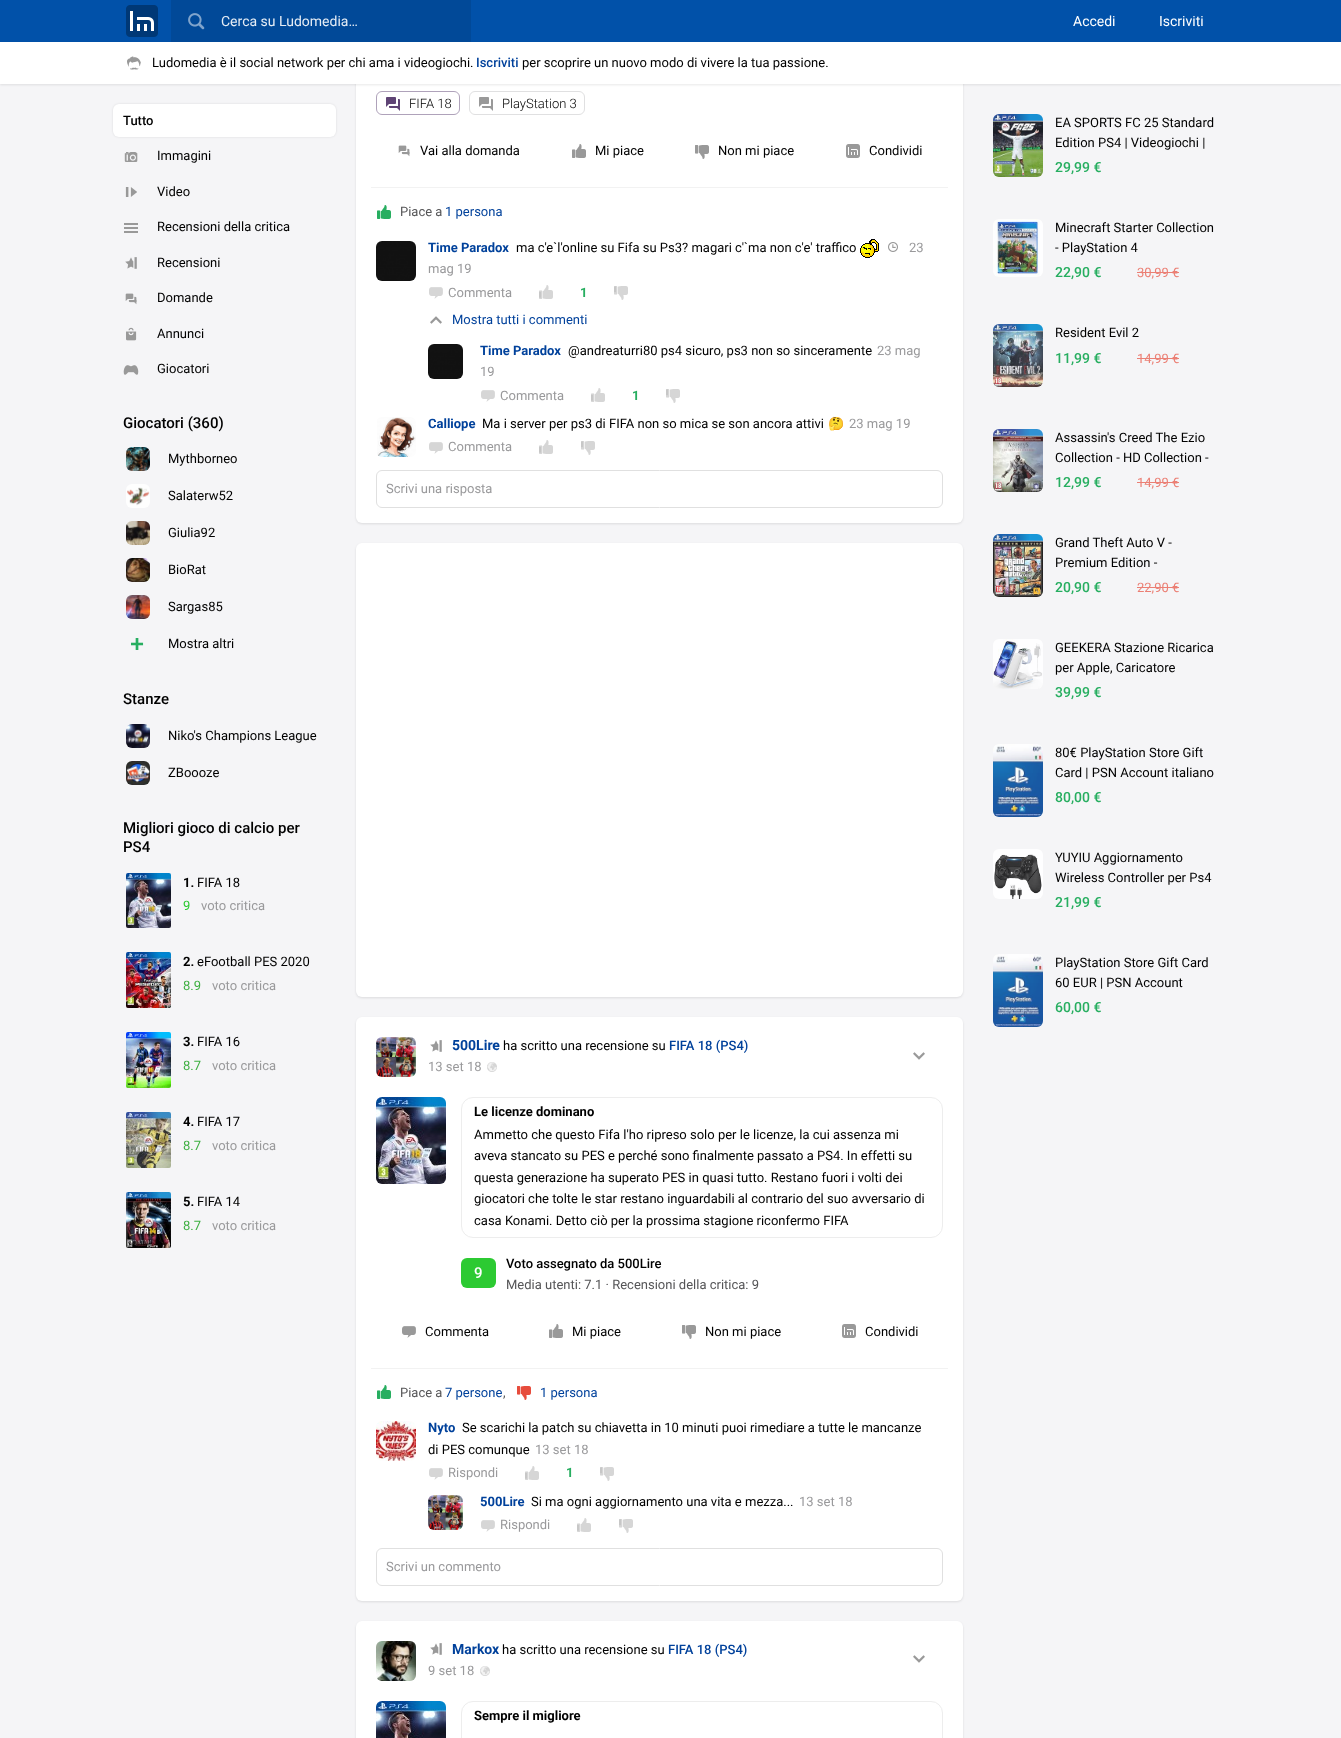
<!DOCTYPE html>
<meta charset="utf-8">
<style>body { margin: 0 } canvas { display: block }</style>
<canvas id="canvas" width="1341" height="1738"></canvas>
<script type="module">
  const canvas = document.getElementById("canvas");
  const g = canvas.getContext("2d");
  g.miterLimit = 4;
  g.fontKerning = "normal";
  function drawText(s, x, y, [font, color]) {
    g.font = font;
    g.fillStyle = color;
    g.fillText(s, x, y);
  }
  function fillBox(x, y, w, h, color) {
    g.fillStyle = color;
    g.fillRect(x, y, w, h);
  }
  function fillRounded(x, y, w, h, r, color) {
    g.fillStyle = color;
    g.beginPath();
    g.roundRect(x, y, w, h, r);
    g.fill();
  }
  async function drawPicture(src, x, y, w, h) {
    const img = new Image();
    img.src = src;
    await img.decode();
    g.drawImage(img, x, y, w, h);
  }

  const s1 = ["14px Roboto", "#E6EDF5"];
  const s2 = ["14px Roboto", "#FFFFFF"];
  const s3 = ["13px Roboto", "#000000"];
  const s4 = ["500 13px Roboto", "#00419B"];
  const s5 = ["500 13px Roboto", "#000000"];
  const s6 = ["500 15px Roboto", "#000000"];
  const s7 = ["bold 24px Liberation Sans", "#27AE60"];
  const s8 = ["bold 13px Roboto", "#000000"];
  const s9 = ["13px Roboto", "#2CCA32"];
  const s10 = ["13px Roboto", "#99999B"];
  const s11 = ["13px Roboto", "#40B044"];
  const s12 = ["300 13px Roboto", "#000000"];
  const s13 = ["13px Roboto", "#555557"];
  const s14 = ["13px Roboto", "#00419B"];
  const s15 = ["bold 13px Roboto", "#00419B"];
  const s16 = ["bold 13px Roboto", "#27AE60"];
  const s17 = ["13px Noto Color Emoji", "#000000"];
  const s18 = ["bold 14px Roboto", "#00419B"];
  const s19 = ["500 15px Roboto", "#FFFFFF"];
  const s20 = ["500 14px Roboto", "#27AE60"];
  const s21 = ["13px Roboto", "#EB7F74"];

  fillBox(0, 0, 1341, 1738, "#F5F5F7");
  g.fillStyle = "rgba(0, 0, 0, 0.1)";
  g.filter = "blur(1px)";
  g.beginPath();
  g.roundRect(356, -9, 607, 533, 6);
  g.fill();
  g.filter = "none";
  fillRounded(356, -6, 607, 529, 6, "#FFFFFF");
  fillBox(0, 0, 1341, 42, "#0151A9");
  await drawPicture("pic1.png", 126, 5, 32, 32);
  g.fillStyle = "rgba(0, 0, 0, 0.09)";
  g.filter = "blur(1px)";
  g.beginPath();
  g.rect(0, 43, 1341, 42);
  g.fill();
  g.filter = "none";
  fillBox(171, 0, 300, 42, "#014998");
  await drawPicture("pic2.png", 188, 13, 17, 17);
  drawText("Cerca su Ludomedia…", 221, 26, s1);
  drawText("Accedi", 1073, 26, s2);
  drawText("Iscriviti", 1159, 26, s2);
  fillBox(0, 42, 1341, 42, "#FFFFFF");
  await drawPicture("pic3.png", 127, 56, 14, 14);
  drawText("Ludomedia è il social network per chi ama i videogiochi.", 152, 67, s3);
  drawText("Iscriviti", 476, 67, s4);
  drawText("per scoprire un nuovo modo di vivere la tua passione.", 522, 67, s3);
  g.fillStyle = "rgba(0, 0, 0, 0.1)";
  g.filter = "blur(1px)";
  g.beginPath();
  g.roundRect(113, 104, 223, 33, 6);
  g.fill();
  g.filter = "none";
  fillRounded(113, 104, 223, 33, 6, "#FFFFFF");
  drawText("Tutto", 123, 125, s5);
  await drawPicture("pic4.png", 124, 152, 14, 10);
  drawText("Immagini", 157, 160, s3);
  await drawPicture("pic5.png", 125, 187, 12, 10);
  drawText("Video", 157, 196, s3);
  await drawPicture("pic6.png", 124, 223, 14, 10);
  drawText("Recensioni della critica", 157, 231, s3);
  await drawPicture("pic7.png", 125, 257, 12, 12);
  drawText("Recensioni", 157, 267, s3);
  await drawPicture("pic8.png", 125, 293, 12, 12);
  drawText("Domande", 157, 302, s3);
  await drawPicture("pic9.png", 126, 327, 11, 14);
  drawText("Annunci", 157, 338, s3);
  await drawPicture("pic10.png", 123, 365, 16, 10);
  drawText("Giocatori", 157, 373, s3);
  drawText("Giocatori (360)", 123, 428, s6);
  await drawPicture("pic11.png", 126, 447, 24, 24);
  drawText("Mythborneo", 168, 463, s3);
  await drawPicture("pic12.png", 126, 484, 24, 24);
  drawText("Salaterw52", 168, 500, s3);
  await drawPicture("pic13.png", 126, 521, 24, 24);
  drawText("Giulia92", 168, 537, s3);
  await drawPicture("pic14.png", 126, 558, 24, 24);
  drawText("BioRat", 168, 574, s3);
  await drawPicture("pic15.png", 126, 595, 24, 24);
  drawText("Sargas85", 168, 611, s3);
  drawText("+", 130, 652, s7);
  drawText("Mostra altri", 168, 648, s3);
  drawText("Stanze", 123, 704, s6);
  await drawPicture("pic16.png", 126, 724, 24, 24);
  drawText("Niko's Champions League", 168, 740, s3);
  await drawPicture("pic17.png", 126, 761, 24, 24);
  drawText("ZBoooze", 168, 777, s3);
  drawText("Migliori gioco di calcio per", 123, 833, s6);
  drawText("PS4", 123, 852, s6);
  await drawPicture("pic18.png", 126, 873, 45, 55);
  drawText("1.", 183, 887, s8);
  drawText("FIFA 18", 197, 887, s3);
  drawText("9", 183, 910, s9);
  drawText("voto critica", 201, 910, s10);
  await drawPicture("pic19.png", 126, 952, 45, 56);
  drawText("2.", 183, 966, s8);
  drawText("eFootball PES 2020", 197, 966, s3);
  drawText("8.9", 183, 990, s11);
  drawText("voto critica", 212, 990, s10);
  await drawPicture("pic20.png", 126, 1032, 45, 56);
  drawText("3.", 183, 1046, s8);
  drawText("FIFA 16", 197, 1046, s3);
  drawText("8.7", 183, 1070, s11);
  drawText("voto critica", 212, 1070, s10);
  await drawPicture("pic21.png", 126, 1112, 45, 56);
  drawText("4.", 183, 1126, s8);
  drawText("FIFA 17", 197, 1126, s3);
  drawText("8.7", 183, 1150, s11);
  drawText("voto critica", 212, 1150, s10);
  await drawPicture("pic22.png", 126, 1192, 45, 56);
  drawText("5.", 183, 1206, s8);
  drawText("FIFA 14", 197, 1206, s3);
  drawText("8.7", 183, 1230, s11);
  drawText("voto critica", 212, 1230, s10);
  g.beginPath();
  g.roundRect(376.5, 91.5, 83, 23, 5.5);
  g.strokeStyle = "#AFA2BA";
  g.stroke();
  await drawPicture("pic23.png", 386, 97, 14, 14);
  drawText("FIFA 18", 409, 108, s12);
  g.beginPath();
  g.roundRect(469.5, 91.5, 115, 23, 5.5);
  g.strokeStyle = "#E0E0E1";
  g.stroke();
  await drawPicture("pic24.png", 479, 97, 14, 14);
  drawText("PlayStation 3", 502, 108, s12);
  await drawPicture("pic25.png", 398, 145, 12, 12);
  drawText("Vai alla domanda", 420, 155, s3);
  await drawPicture("pic26.png", 572, 144, 14, 14);
  drawText("Mi piace", 595, 155, s3);
  await drawPicture("pic27.png", 695, 145, 14, 14);
  drawText("Non mi piace", 718, 155, s3);
  await drawPicture("pic28.png", 846, 144, 14, 14);
  drawText("Condividi", 869, 155, s3);
  fillBox(371, 187, 577, 1, "#F2F2F2");
  await drawPicture("pic29.png", 377, 205, 14, 14);
  drawText("Piace a", 400, 216, s13);
  drawText("1 persona", 445, 216, s14);
  await drawPicture("pic30.png", 376, 241, 40, 40);
  drawText("Time Paradox", 428, 252, s15);
  await drawPicture("pic31.png", 860, 239, 19, 19);
  await drawPicture("pic32.png", 888, 242, 10, 10);
  drawText("23", 909, 252, s10);
  drawText("mag 19", 428, 273, s10);
  drawText("ma c'e`l'online su Fifa su Ps3? magari c'`ma non c'e' traffico", 516, 252, s3);
  await drawPicture("pic33.png", 429, 287, 14, 12);
  drawText("Commenta", 448, 297, s10);
  await drawPicture("pic34.png", 539, 285, 14, 14);
  drawText("1", 580, 297, s16);
  await drawPicture("pic35.png", 614, 286, 14, 14);
  await drawPicture("pic36.png", 430, 316, 12, 8);
  drawText("Mostra tutti i commenti", 452, 324, s14);
  await drawPicture("pic37.png", 428, 344, 35, 35);
  drawText("Time Paradox", 480, 355, s15);
  drawText("@andreaturri80 ps4 sicuro, ps3 non so sinceramente", 568, 355, s3);
  drawText("23 mag", 877, 355, s10);
  drawText("19", 480, 376, s10);
  await drawPicture("pic33.png", 481, 390, 14, 12);
  drawText("Commenta", 500, 400, s10);
  await drawPicture("pic34.png", 591, 388, 14, 14);
  drawText("1", 632, 400, s16);
  await drawPicture("pic35.png", 666, 389, 14, 14);
  await drawPicture("pic38.png", 377, 417, 39, 40);
  drawText("Calliope", 428, 428, s15);
  drawText("Ma i server per ps3 di FIFA non so mica se son ancora attivi", 482, 428, s3);
  drawText("🤔", 828, 428, s17);
  drawText("23 mag 19", 849, 428, s10);
  await drawPicture("pic33.png", 429, 442, 14, 12);
  drawText("Commenta", 448, 451, s10);
  await drawPicture("pic34.png", 539, 440, 14, 14);
  await drawPicture("pic35.png", 581, 441, 14, 14);
  g.beginPath();
  g.roundRect(376.5, 470.5, 566, 37, 5.5);
  g.strokeStyle = "#E0E0E0";
  g.stroke();
  drawText("Scrivi una risposta", 386, 493, s10);
  g.fillStyle = "rgba(0, 0, 0, 0.1)";
  g.filter = "blur(1px)";
  g.beginPath();
  g.roundRect(356, 544, 607, 454, 6);
  g.fill();
  g.filter = "none";
  fillRounded(356, 543, 607, 454, 6, "#FFFFFF");
  g.fillStyle = "rgba(0, 0, 0, 0.1)";
  g.filter = "blur(1px)";
  g.beginPath();
  g.roundRect(356, 1018, 607, 584, 6);
  g.fill();
  g.filter = "none";
  fillRounded(356, 1017, 607, 584, 6, "#FFFFFF");
  await drawPicture("pic39.png", 376, 1037, 40, 40);
  await drawPicture("pic40.png", 430, 1040, 12, 12);
  drawText("500Lire", 452, 1050, s18);
  drawText("ha scritto una recensione su", 503, 1050, s3);
  drawText("FIFA 18 (PS4)", 669, 1050, s4);
  drawText("13 set 18", 428, 1071, s10);
  await drawPicture("pic41.png", 487, 1062, 10, 10);
  await drawPicture("pic42.png", 913, 1052, 12, 8);
  await drawPicture("pic43.png", 376, 1097, 70, 87);
  g.beginPath();
  g.roundRect(461.5, 1097.5, 481, 140, 11.5);
  g.strokeStyle = "#EDEDED";
  g.stroke();
  drawText("Le licenze dominano", 474, 1116, s8);
  drawText("Ammetto che questo Fifa l'ho ripreso solo per le licenze, la cui assenza mi", 474, 1139, s3);
  drawText("aveva stancato su PES e perché sono finalmente passato a PS4. In effetti su", 474, 1160, s3);
  drawText("questa generazione ha superato PES in quasi tutto. Restano fuori i volti dei", 474, 1182, s3);
  drawText("giocatori che tolte le star restano inguardabili al contrario del suo avversario di", 474, 1203, s3);
  drawText("casa Konami. Detto ciò per la prossima stagione riconfermo FIFA", 474, 1225, s3);
  fillRounded(461, 1258, 35, 30, 6, "#2CCA32");
  drawText("9", 474, 1278, s19);
  drawText("Voto assegnato da 500Lire", 506, 1268, s5);
  drawText("Media utenti: 7.1 · Recensioni della critica: 9", 506, 1289, s13);
  await drawPicture("pic44.png", 402, 1326, 14, 12);
  drawText("Commenta", 425, 1336, s3);
  await drawPicture("pic26.png", 549, 1324, 14, 14);
  drawText("Mi piace", 572, 1336, s3);
  await drawPicture("pic27.png", 682, 1325, 14, 14);
  drawText("Non mi piace", 705, 1336, s3);
  await drawPicture("pic28.png", 842, 1324, 14, 14);
  drawText("Condividi", 865, 1336, s3);
  fillBox(371, 1368, 577, 1, "#F2F2F2");
  await drawPicture("pic29.png", 377, 1385, 14, 14);
  drawText("Piace a", 400, 1397, s13);
  drawText("7 persone", 445, 1397, s14);
  drawText(",", 503, 1397, s13);
  await drawPicture("pic45.png", 517, 1386, 14, 14);
  drawText("1 persona", 540, 1397, s14);
  await drawPicture("pic46.png", 376, 1421, 40, 40);
  drawText("Nyto", 428, 1432, s15);
  drawText("Se scarichi la patch su chiavetta in 10 minuti puoi rimediare a tutte le mancanze", 462, 1432, s3);
  drawText("di PES comunque", 428, 1454, s3);
  drawText("13 set 18", 535, 1454, s10);
  await drawPicture("pic33.png", 429, 1468, 14, 12);
  drawText("Rispondi", 448, 1477, s10);
  await drawPicture("pic34.png", 525, 1466, 14, 14);
  drawText("1", 566, 1477, s16);
  await drawPicture("pic35.png", 600, 1467, 14, 14);
  await drawPicture("pic47.png", 428, 1495, 35, 35);
  drawText("500Lire", 480, 1506, s15);
  drawText("Si ma ogni aggiornamento una vita e mezza...", 531, 1506, s3);
  drawText("13 set 18", 799, 1506, s10);
  await drawPicture("pic33.png", 481, 1520, 14, 12);
  drawText("Rispondi", 500, 1529, s10);
  await drawPicture("pic34.png", 577, 1518, 14, 14);
  await drawPicture("pic35.png", 619, 1519, 14, 14);
  g.beginPath();
  g.roundRect(376.5, 1548.5, 566, 37, 5.5);
  g.strokeStyle = "#E0E0E0";
  g.stroke();
  drawText("Scrivi un commento", 386, 1571, s10);
  g.fillStyle = "rgba(0, 0, 0, 0.1)";
  g.filter = "blur(1px)";
  g.beginPath();
  g.roundRect(356, 1622, 607, 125, 6);
  g.fill();
  g.filter = "none";
  fillRounded(356, 1621, 607, 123, 6, "#FFFFFF");
  await drawPicture("pic48.png", 376, 1641, 40, 40);
  await drawPicture("pic40.png", 430, 1643, 12, 12);
  drawText("Markox", 452, 1654, s18);
  drawText("ha scritto una recensione su", 502, 1654, s3);
  drawText("FIFA 18 (PS4)", 668, 1654, s4);
  drawText("9 set 18", 428, 1675, s10);
  await drawPicture("pic41.png", 480, 1666, 10, 10);
  await drawPicture("pic42.png", 913, 1655, 12, 8);
  await drawPicture("pic49.png", 376, 1701, 70, 37);
  g.beginPath();
  g.roundRect(461.5, 1701.5, 481, 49, 11.5);
  g.strokeStyle = "#EDEDED";
  g.stroke();
  drawText("Sempre il migliore", 474, 1720, s8);
  await drawPicture("pic50.png", 993, 114, 50, 63);
  drawText("EA SPORTS FC 25 Standard", 1055, 127, s3);
  drawText("Edition PS4 | Videogiochi |", 1055, 147, s3);
  drawText("29,99 €", 1055, 172, s20);
  await drawPicture("pic51.png", 993, 219, 50, 58);
  drawText("Minecraft Starter Collection", 1055, 232, s3);
  drawText("- PlayStation 4", 1055, 252, s3);
  drawText("22,90 €", 1055, 277, s20);
  drawText("30,99 €", 1137, 277, s21);
  fillBox(1137, 272, 42, 1, "#EB7F74");
  await drawPicture("pic52.png", 993, 324, 50, 63);
  drawText("Resident Evil 2", 1055, 337, s3);
  drawText("11,99 €", 1055, 363, s20);
  drawText("14,99 €", 1137, 363, s21);
  fillBox(1137, 358, 42, 1, "#EB7F74");
  await drawPicture("pic53.png", 993, 429, 50, 63);
  drawText("Assassin's Creed The Ezio", 1055, 442, s3);
  drawText("Collection - HD Collection -", 1055, 462, s3);
  drawText("12,99 €", 1055, 487, s20);
  drawText("14,99 €", 1137, 487, s21);
  fillBox(1137, 482, 42, 1, "#EB7F74");
  await drawPicture("pic54.png", 993, 534, 50, 63);
  drawText("Grand Theft Auto V -", 1055, 547, s3);
  drawText("Premium Edition -", 1055, 567, s3);
  drawText("20,90 €", 1055, 592, s20);
  drawText("22,90 €", 1137, 592, s21);
  fillBox(1137, 587, 42, 1, "#EB7F74");
  await drawPicture("pic55.png", 993, 639, 50, 50);
  drawText("GEEKERA Stazione Ricarica", 1055, 652, s3);
  drawText("per Apple, Caricatore", 1055, 672, s3);
  drawText("39,99 €", 1055, 697, s20);
  await drawPicture("pic56.png", 993, 744, 50, 73);
  drawText("80€ PlayStation Store Gift", 1055, 757, s3);
  drawText("Card | PSN Account italiano", 1055, 777, s3);
  drawText("80,00 €", 1055, 802, s20);
  await drawPicture("pic57.png", 993, 849, 50, 50);
  drawText("YUYIU Aggiornamento", 1055, 862, s3);
  drawText("Wireless Controller per Ps4", 1055, 882, s3);
  drawText("21,99 €", 1055, 907, s20);
  await drawPicture("pic58.png", 993, 954, 50, 73);
  drawText("PlayStation Store Gift Card", 1055, 967, s3);
  drawText("60 EUR | PSN Account", 1055, 987, s3);
  drawText("60,00 €", 1055, 1012, s20);
</script>
